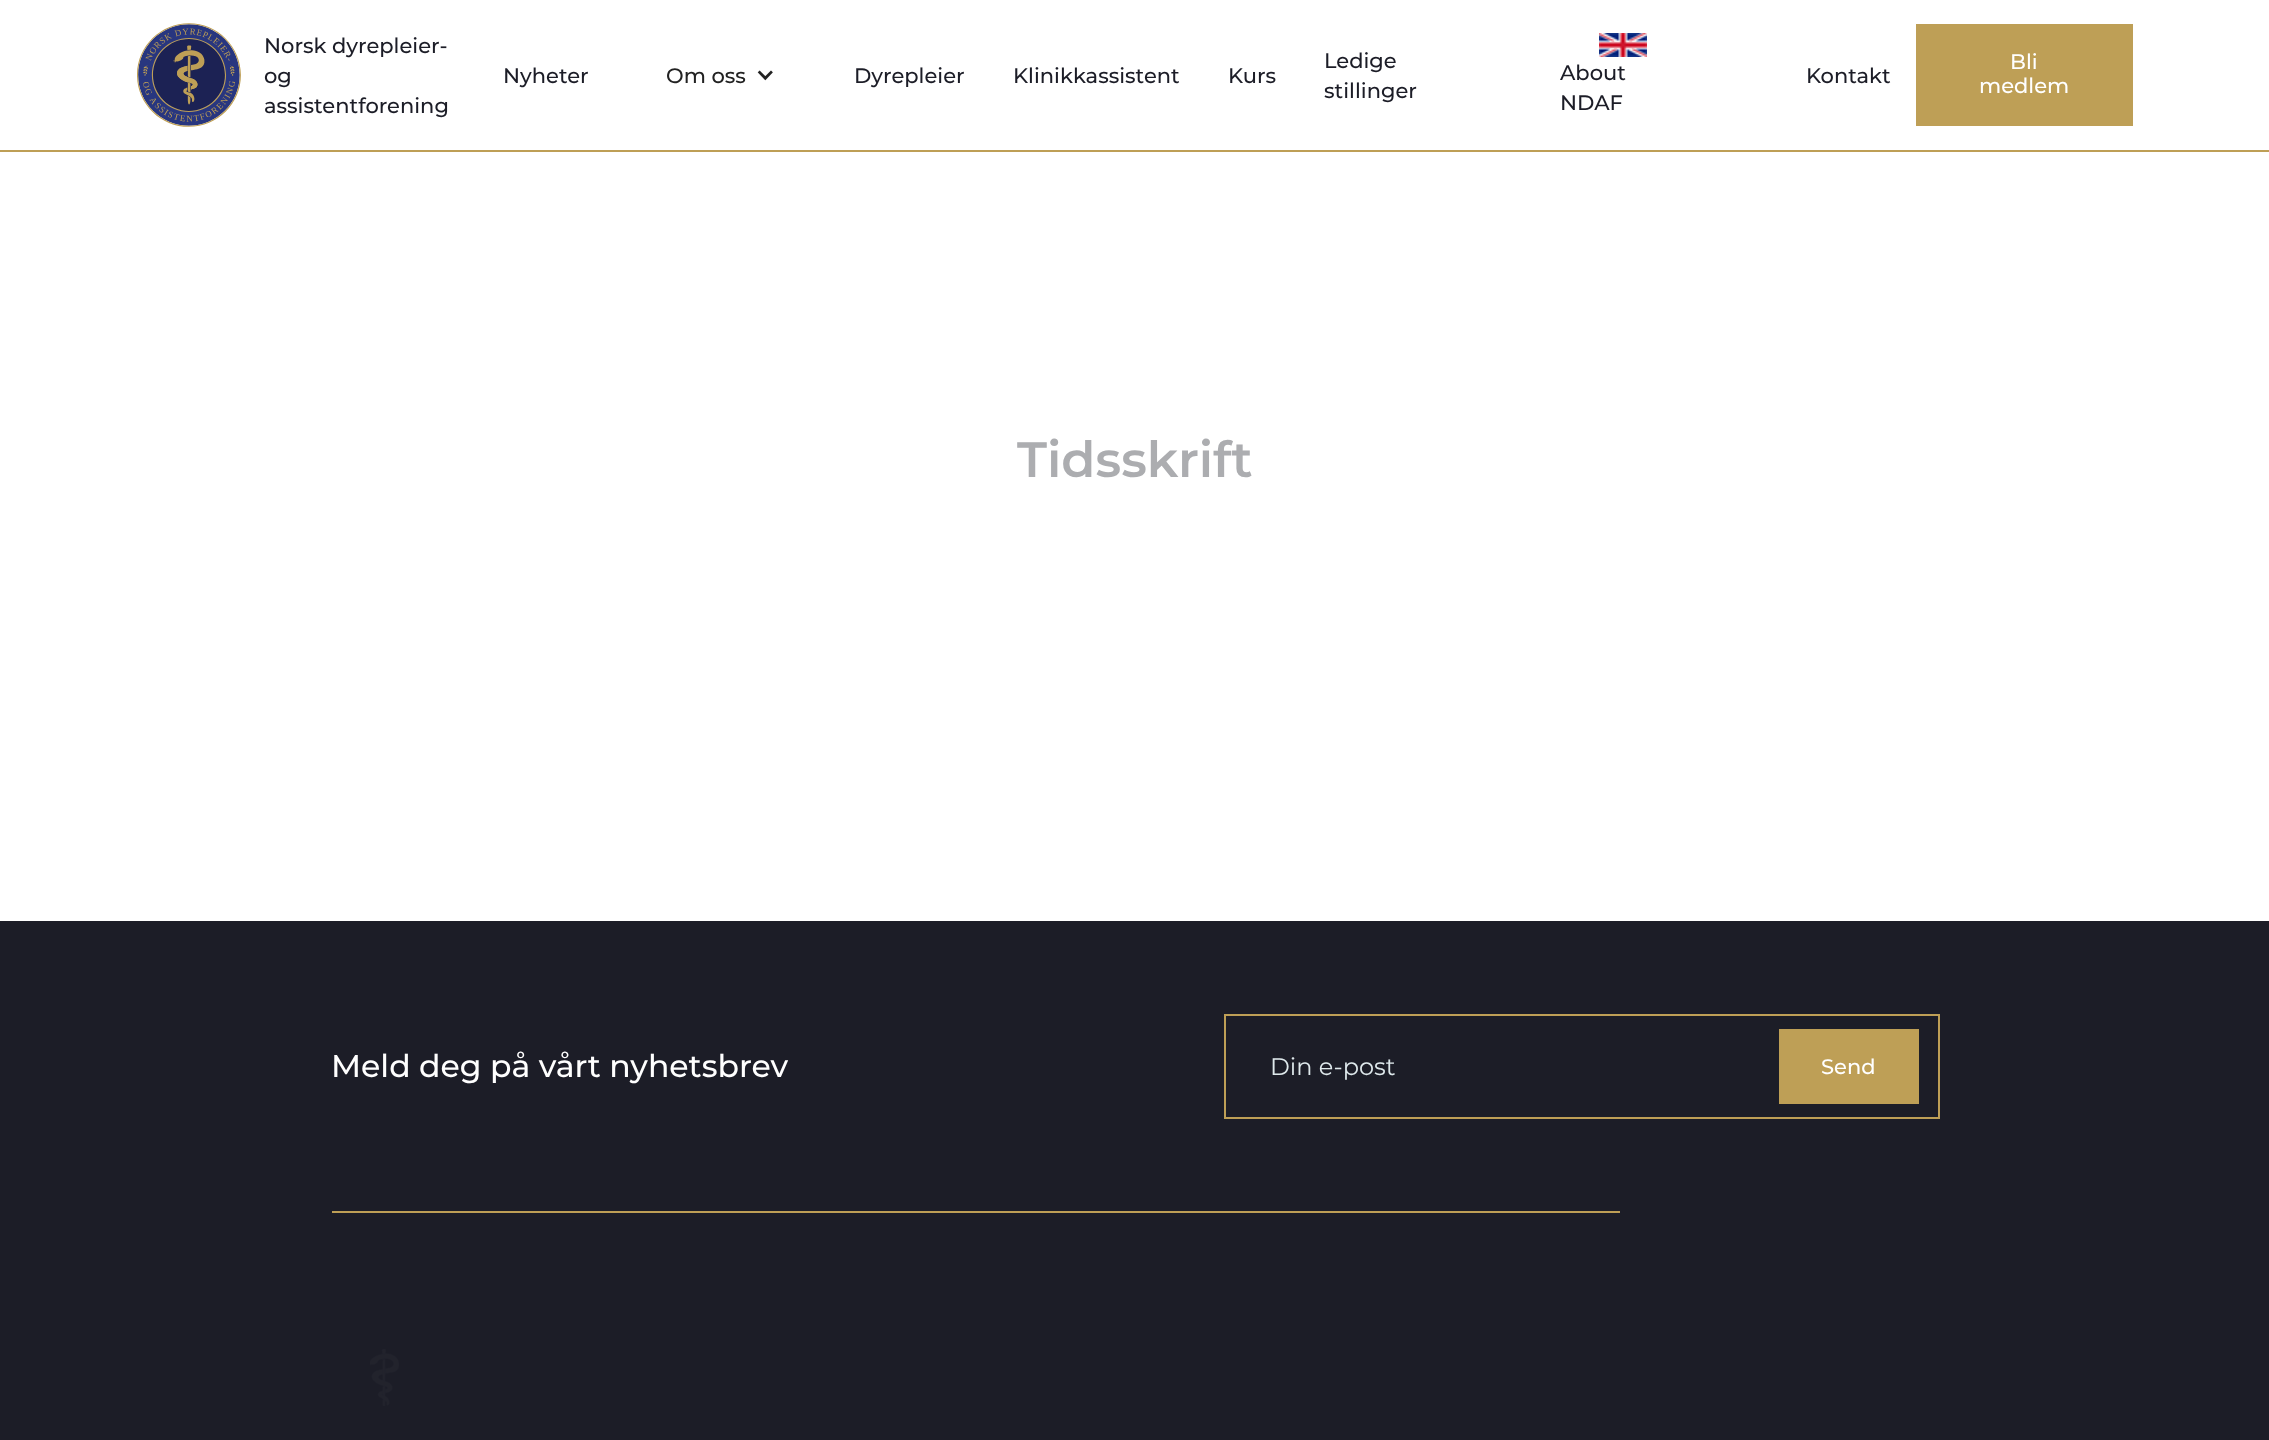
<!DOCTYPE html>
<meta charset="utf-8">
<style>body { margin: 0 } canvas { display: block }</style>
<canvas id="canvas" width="2269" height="1440"></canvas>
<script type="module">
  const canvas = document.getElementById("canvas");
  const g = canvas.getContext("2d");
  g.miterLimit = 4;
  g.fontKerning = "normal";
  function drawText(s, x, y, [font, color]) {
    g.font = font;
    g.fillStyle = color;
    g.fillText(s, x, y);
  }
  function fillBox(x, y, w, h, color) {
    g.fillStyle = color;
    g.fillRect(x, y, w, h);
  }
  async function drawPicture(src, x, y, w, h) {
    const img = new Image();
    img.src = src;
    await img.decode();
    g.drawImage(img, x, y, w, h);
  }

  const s1 = ["500 21px Montserrat", "#1C1D27"];
  const s2 = ["500 21px Montserrat", "#222222"];
  const s3 = ["500 21px Montserrat", "#FFFFFF"];
  const s4 = ["600 49.75px Montserrat", "#ACADB0"];
  const s5 = ["500 31.5px Montserrat", "#FFFFFF"];
  const s6 = ["24px Montserrat", "#DFE9EC"];

  fillBox(0, 0, 2269, 1440, "#FFFFFF");
  fillBox(0, 150, 2269, 2, "#BE9F56");
  await drawPicture("pic1.png", 137, 23, 104, 104);
  drawText("Norsk dyrepleier-", 264, 53, s1);
  drawText("og", 264, 83, s1);
  drawText("assistentforening", 264, 113, s1);
  drawText("Nyheter", 503, 83, s1);
  drawText("Om oss", 666, 83, s2);
  await drawPicture("pic2.png", 757, 70, 16, 11);
  drawText("Dyrepleier", 854, 83, s1);
  drawText("Klinikkassistent", 1013, 83, s1);
  drawText("Kurs", 1228, 83, s1);
  drawText("Ledige", 1324, 68, s1);
  drawText("stillinger", 1324, 98, s1);
  await drawPicture("pic3.png", 1599, 33, 48, 24);
  drawText("About", 1560, 80, s1);
  drawText("NDAF", 1560, 110, s1);
  drawText("Kontakt", 1806, 83, s1);
  fillBox(1916, 24, 217, 102, "#BE9F56");
  drawText("Bli", 2010, 69, s3);
  drawText("medlem", 1979, 93, s3);
  drawText("Tidsskrift", 1017, 477, s4);
  fillBox(0, 921, 2269, 519, "#1C1D27");
  drawText("Meld deg på vårt nyhetsbrev", 331, 1077, s5);
  g.strokeStyle = "#BE9F56";
  g.lineWidth = 2;
  g.strokeRect(1225, 1015, 714, 103);
  drawText("Din e-post", 1270, 1075, s6);
  fillBox(1779, 1029, 140, 75, "#BE9F56");
  drawText("Send", 1821, 1074, s3);
  fillBox(332, 1211, 1288, 2, "#BE9F56");
  await drawPicture("pic4.png", 370, 1349, 29, 57);
</script>
